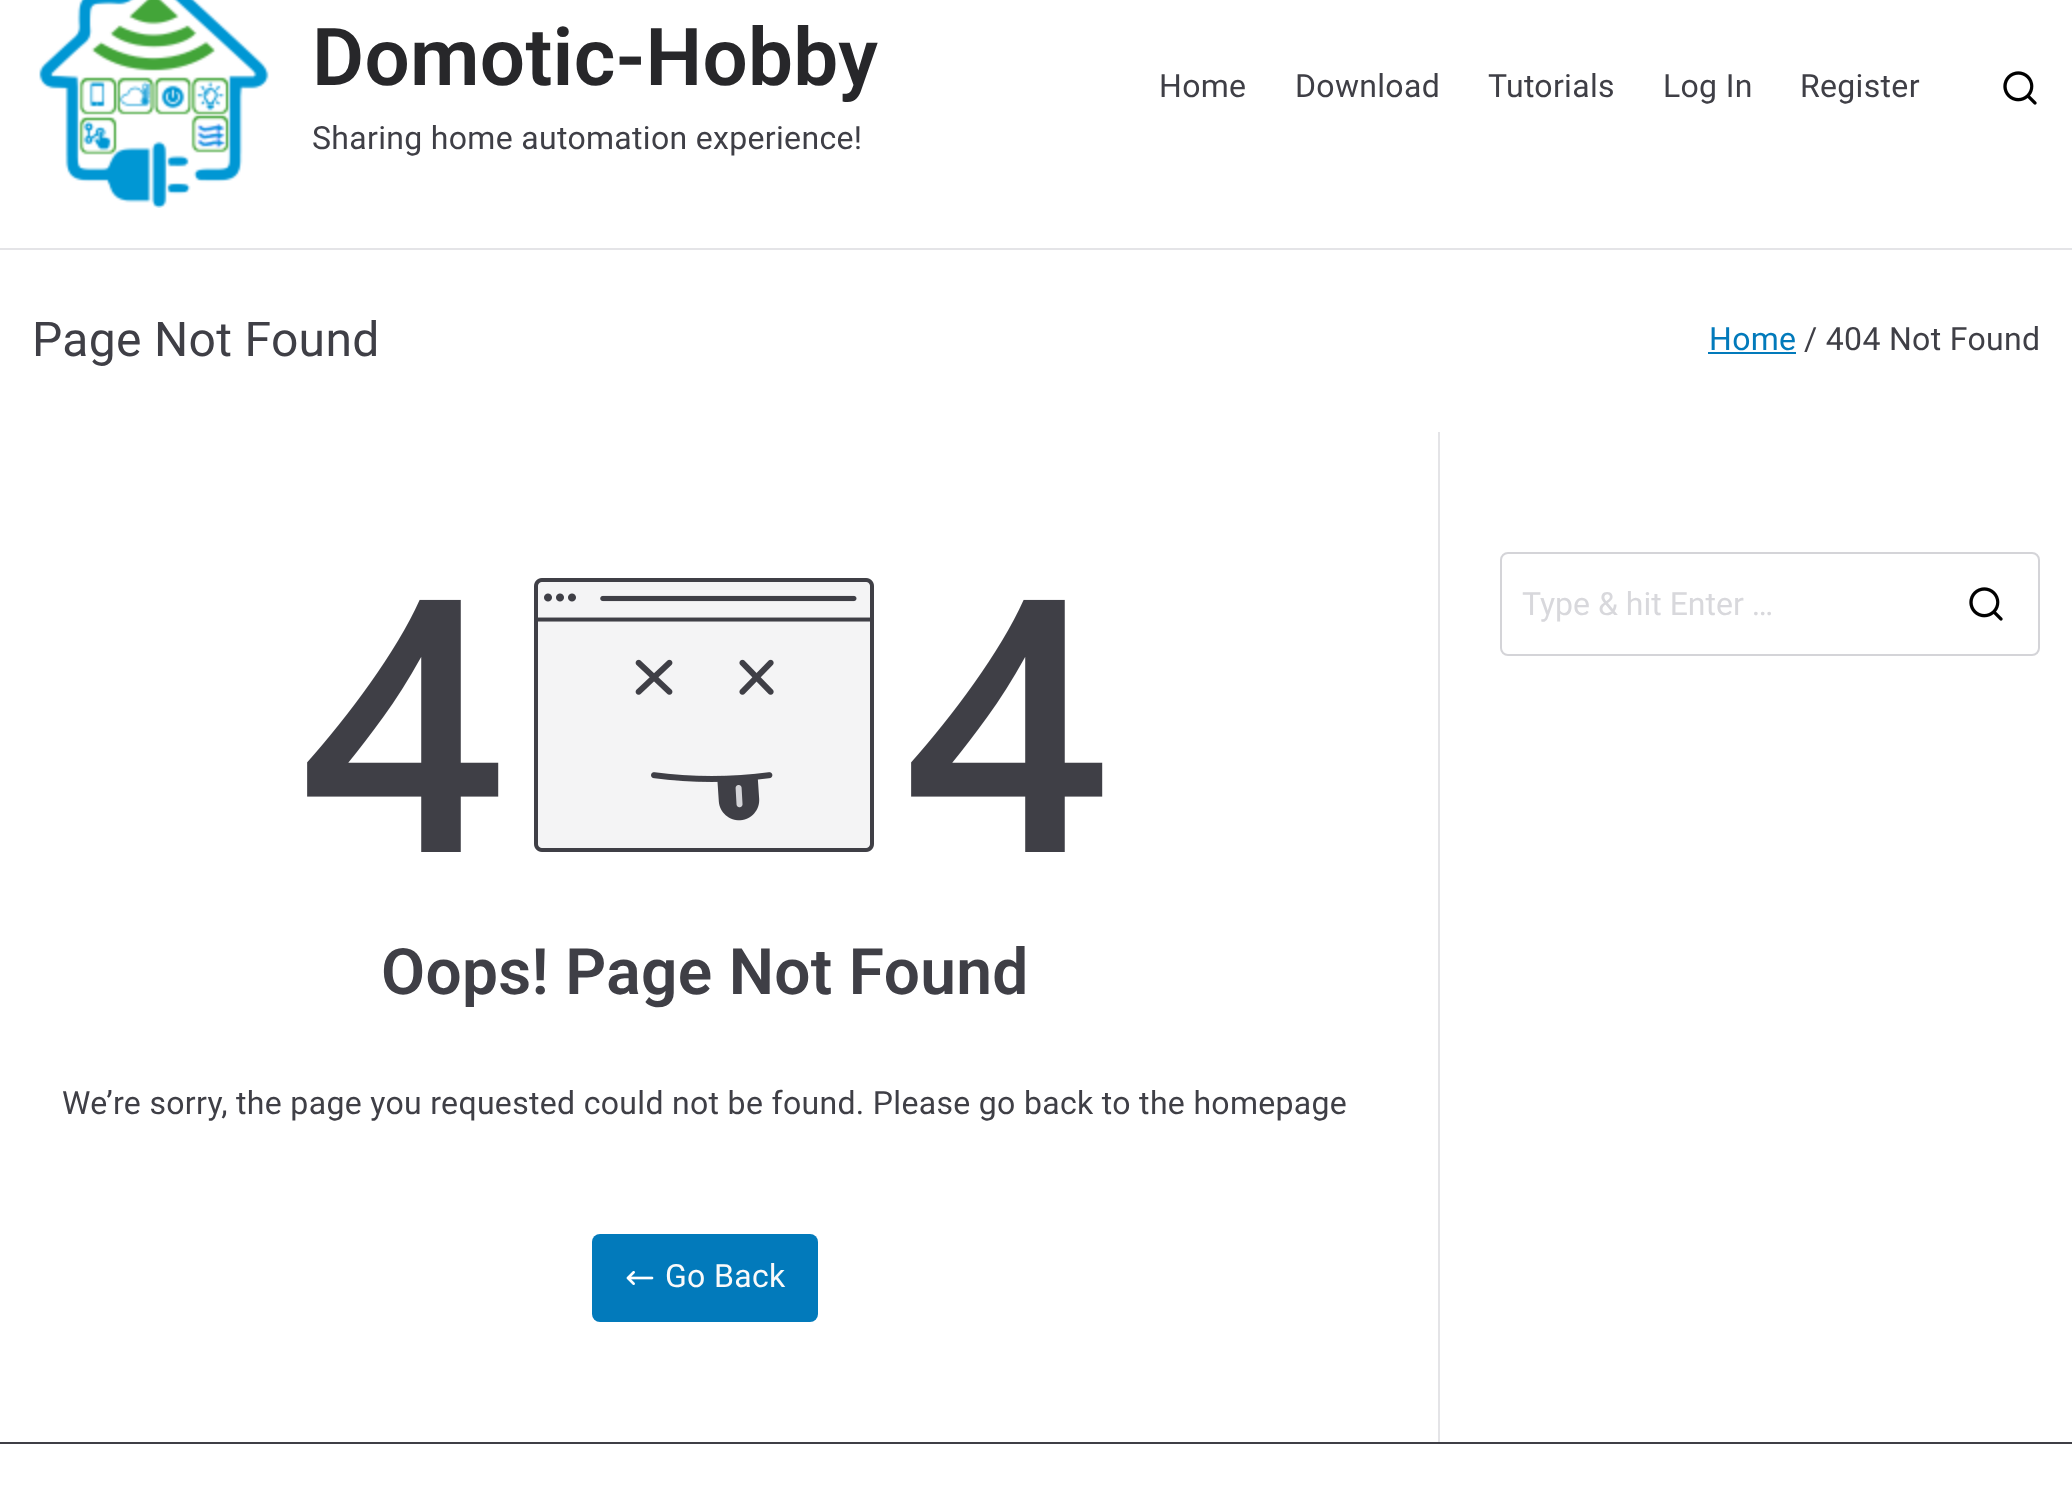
<!DOCTYPE html>
<meta charset="utf-8">
<style>body { margin: 0 } canvas { display: block }</style>
<canvas id="canvas" width="2072" height="1508"></canvas>
<script type="module">
  const canvas = document.getElementById("canvas");
  const g = canvas.getContext("2d");
  g.miterLimit = 4;
  g.fontKerning = "normal";
  function drawText(s, x, y, [font, color]) {
    g.font = font;
    g.fillStyle = color;
    g.fillText(s, x, y);
  }
  function fillBox(x, y, w, h, color) {
    g.fillStyle = color;
    g.fillRect(x, y, w, h);
  }
  function fillRounded(x, y, w, h, r, color) {
    g.fillStyle = color;
    g.beginPath();
    g.roundRect(x, y, w, h, r);
    g.fill();
  }
  async function drawPicture(src, x, y, w, h) {
    const img = new Image();
    img.src = src;
    await img.decode();
    g.drawImage(img, x, y, w, h);
  }

  const s1 = ["600 80px Roboto", "#27272A"];
  const s2 = ["32px Roboto", "#3F3F46"];
  const s3 = ["48px Roboto", "#3F3F46"];
  const s4 = ["32px Roboto", "#027ABB"];
  const s5 = ["32px Roboto", "#D8D8DC"];
  const s6 = ["600 64px Roboto", "#3F3F46"];
  const s7 = ["32px Roboto", "#FAFAFA"];

  fillBox(0, 0, 2072, 1508, "#E4E4E7");
  fillBox(0, 0, 2072, 248, "#FFFFFF");
  await drawPicture("pic1.png", 39, 0, 230, 208);
  g.letterSpacing = "0.32px";
  drawText("Domotic-Hobby", 312, 85, s1);
  drawText("Sharing home automation experience!", 312, 149, s2);
  drawText("Home", 1159, 97, s2);
  drawText("Download", 1295, 97, s2);
  drawText("Tutorials", 1488, 97, s2);
  drawText("Log In", 1663, 97, s2);
  drawText("Register", 1800, 97, s2);
  await drawPicture("pic2.png", 2003, 71, 34, 34);
  fillBox(0, 250, 2072, 1192, "#FFFFFF");
  drawText("Page Not Found", 32, 356, s3);
  drawText("Home", 1709, 350, s4);
  fillBox(1708, 352, 88, 2, "#027ABB");
  drawText("/ 404 Not Found", 1804, 350, s2);
  fillBox(1438, 432, 2, 1010, "#E4E4E7");
  g.beginPath();
  g.roundRect(1501, 553, 538, 102, 7);
  g.strokeStyle = "#D4D4D8";
  g.lineWidth = 2;
  g.stroke();
  g.letterSpacing = "0px";
  drawText("Type & hit Enter …", 1522, 615, s5);
  await drawPicture("pic2.png", 1969, 587, 34, 34);
  await drawPicture("pic3.png", 307, 578, 796, 274);
  g.letterSpacing = "0.32px";
  drawText("Oops! Page Not Found", 381, 994, s6);
  drawText("We’re sorry, the page you requested could not be found. Please go back to the homepage", 62, 1114, s2);
  fillRounded(592, 1234, 226, 88, 8, "#027ABB");
  await drawPicture("pic4.png", 626, 1271, 28, 14);
  drawText("Go Back", 665, 1287, s7);
  fillBox(0, 1444, 2072, 64, "#FFFFFF");
  fillBox(0, 1442, 2072, 2, "#3F3F46");
</script>
